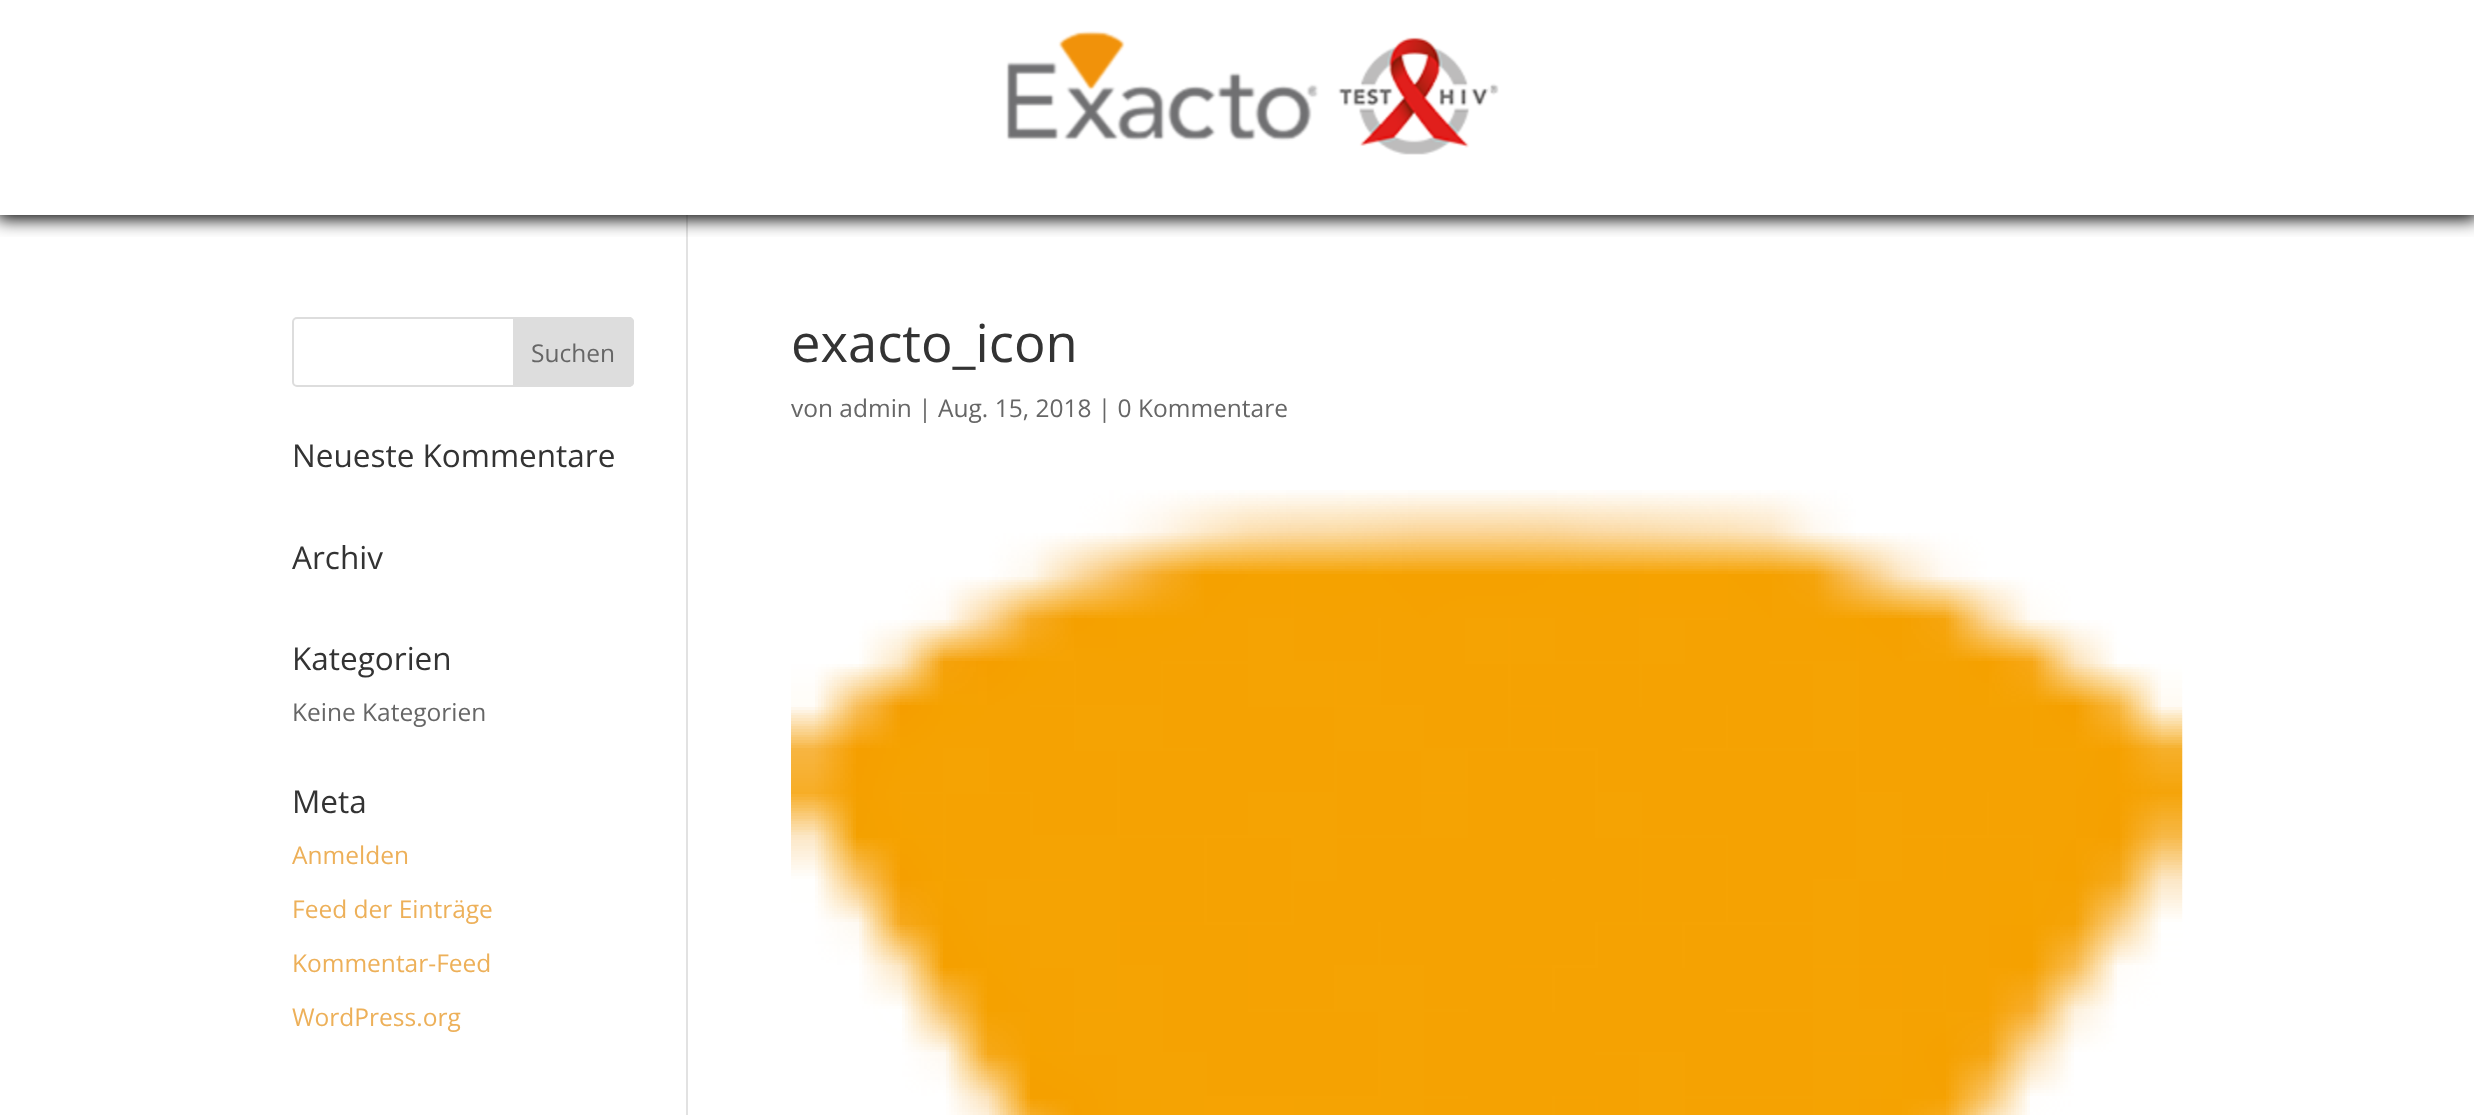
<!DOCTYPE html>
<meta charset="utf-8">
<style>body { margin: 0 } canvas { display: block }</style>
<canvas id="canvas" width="2474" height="1115"></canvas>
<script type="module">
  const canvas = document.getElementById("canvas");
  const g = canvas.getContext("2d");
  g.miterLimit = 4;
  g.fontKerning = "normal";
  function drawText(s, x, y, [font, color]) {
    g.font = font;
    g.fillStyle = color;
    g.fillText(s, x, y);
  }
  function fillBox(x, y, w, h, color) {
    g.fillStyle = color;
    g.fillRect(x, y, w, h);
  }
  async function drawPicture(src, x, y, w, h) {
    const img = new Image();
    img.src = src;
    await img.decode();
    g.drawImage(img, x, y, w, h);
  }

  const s1 = ["24.5px Open Sans", "#666666"];
  const s2 = ["31.5px Open Sans", "#333333"];
  const s3 = ["24.5px Open Sans", "#EDB059"];
  const s4 = ["52.5px Open Sans", "#333333"];

  fillBox(0, 0, 2474, 1115, "#FFFFFF");
  fillBox(686, 215, 2, 900, "#E2E2E2");
  g.save();
  g.beginPath();
  g.rect(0, 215, 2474, 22);
  g.clip();
  g.fillStyle = "#000000";
  g.filter = "blur(9px)";
  g.beginPath();
  g.rect(-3, -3, 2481, 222);
  g.fill();
  g.filter = "none";
  g.restore();
  await drawPicture("pic1.png", 1006, 31, 493, 124);
  g.beginPath();
  g.roundRect(293, 318, 340, 68, 4);
  g.strokeStyle = "#DDDDDD";
  g.lineWidth = 2;
  g.stroke();
  g.fillStyle = "#DDDDDD";
  g.beginPath();
  g.roundRect(514, 318, 119, 68, [0, 4, 4, 0]);
  g.fill();
  g.stroke();
  drawText("Suchen", 531, 362, s1);
  drawText("Neueste Kommentare", 292, 467, s2);
  drawText("Archiv", 292, 569, s2);
  drawText("Kategorien", 292, 670, s2);
  drawText("Keine Kategorien", 292, 721, s1);
  drawText("Meta", 292, 813, s2);
  drawText("Anmelden", 292, 864, s3);
  drawText("Feed der Einträge", 292, 918, s3);
  drawText("Kommentar-Feed", 292, 972, s3);
  drawText("WordPress.org", 292, 1026, s3);
  drawText("exacto_icon", 791, 362, s4);
  drawText("von admin | Aug. 15, 2018 | 0 Kommentare", 791, 417, s1);
  await drawPicture("pic2.png", 791, 490, 1392, 625);
</script>
